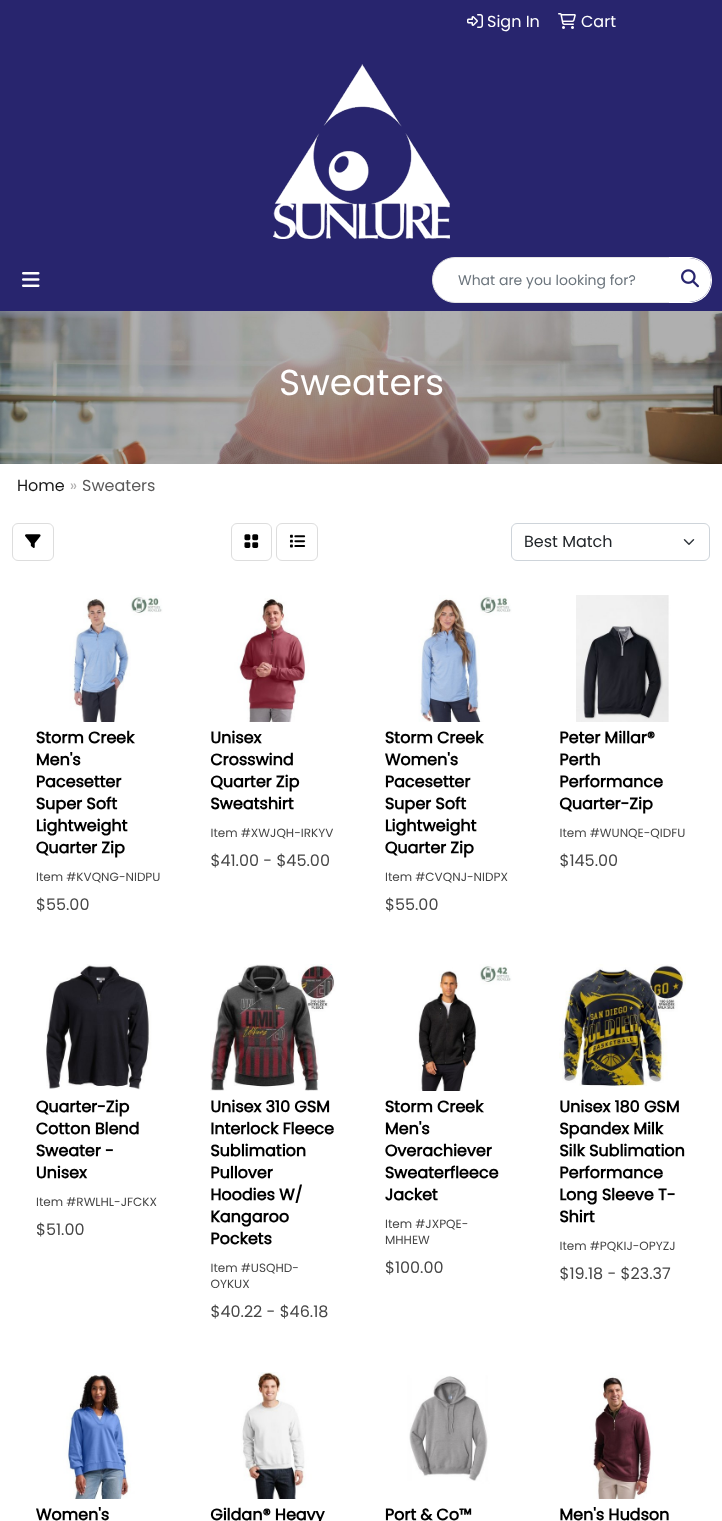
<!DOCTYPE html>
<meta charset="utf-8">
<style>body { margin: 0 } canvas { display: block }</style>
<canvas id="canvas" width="722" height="1521"></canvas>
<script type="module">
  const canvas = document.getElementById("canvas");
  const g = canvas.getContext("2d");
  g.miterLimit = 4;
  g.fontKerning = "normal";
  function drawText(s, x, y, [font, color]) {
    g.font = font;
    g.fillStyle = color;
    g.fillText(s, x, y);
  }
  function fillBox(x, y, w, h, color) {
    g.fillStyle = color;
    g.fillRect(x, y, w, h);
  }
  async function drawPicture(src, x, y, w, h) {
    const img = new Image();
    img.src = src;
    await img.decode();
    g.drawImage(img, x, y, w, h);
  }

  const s1 = ["16px Poppins", "#FFFFFF"];
  const s2 = ["14px Poppins", "#6C757D"];
  const s3 = ["36px Poppins", "#FFFFFF"];

  fillBox(0, 0, 722, 1521, "#FFFFFF");
  fillBox(0, 0, 722, 311, "#28256E");
  await drawPicture("pic1.png", 467, 14, 16, 14);
  drawText("Sign In", 487, 27, s1);
  await drawPicture("pic2.png", 558, 13, 18, 16);
  drawText("Cart", 581, 27, s1);
  await drawPicture("pic3.png", 273, 64, 177, 175);
  await drawPicture("pic4.png", 22, 272, 18, 15);
  g.beginPath();
  g.roundRect(432.5, 257.5, 237, 45, [22.5, 0, 0, 22.5]);
  g.fill();
  g.strokeStyle = "#E4E4E4";
  g.stroke();
  drawText("What are you looking for?", 458, 285, s2);
  g.fillStyle = "#FFFFFF";
  g.beginPath();
  g.roundRect(669, 258, 42, 44, [0, 22, 22, 0]);
  g.fill();
  g.beginPath();
  g.moveTo(669, 257);
  g.lineTo(689, 257);
  g.bezierCurveTo(702, 257, 712, 267, 712, 280);
  g.bezierCurveTo(712, 293, 702, 303, 689, 303);
  g.lineTo(669, 303);
  g.closePath();
  g.moveTo(669, 258);
  g.lineTo(689, 258);
  g.bezierCurveTo(701, 258, 711, 268, 711, 280);
  g.bezierCurveTo(711, 292, 701, 302, 689, 302);
  g.lineTo(669, 302);
  g.closePath();
  g.fill("evenodd");
  await drawPicture("pic5.png", 681, 269, 18, 19);
  await drawPicture("pic6.png", 0, 311, 722, 153);
  drawText("Sweaters", 279, 395, s3);
  await drawPicture("pic7.png", 12, 479, 698, 1042);
</script>
